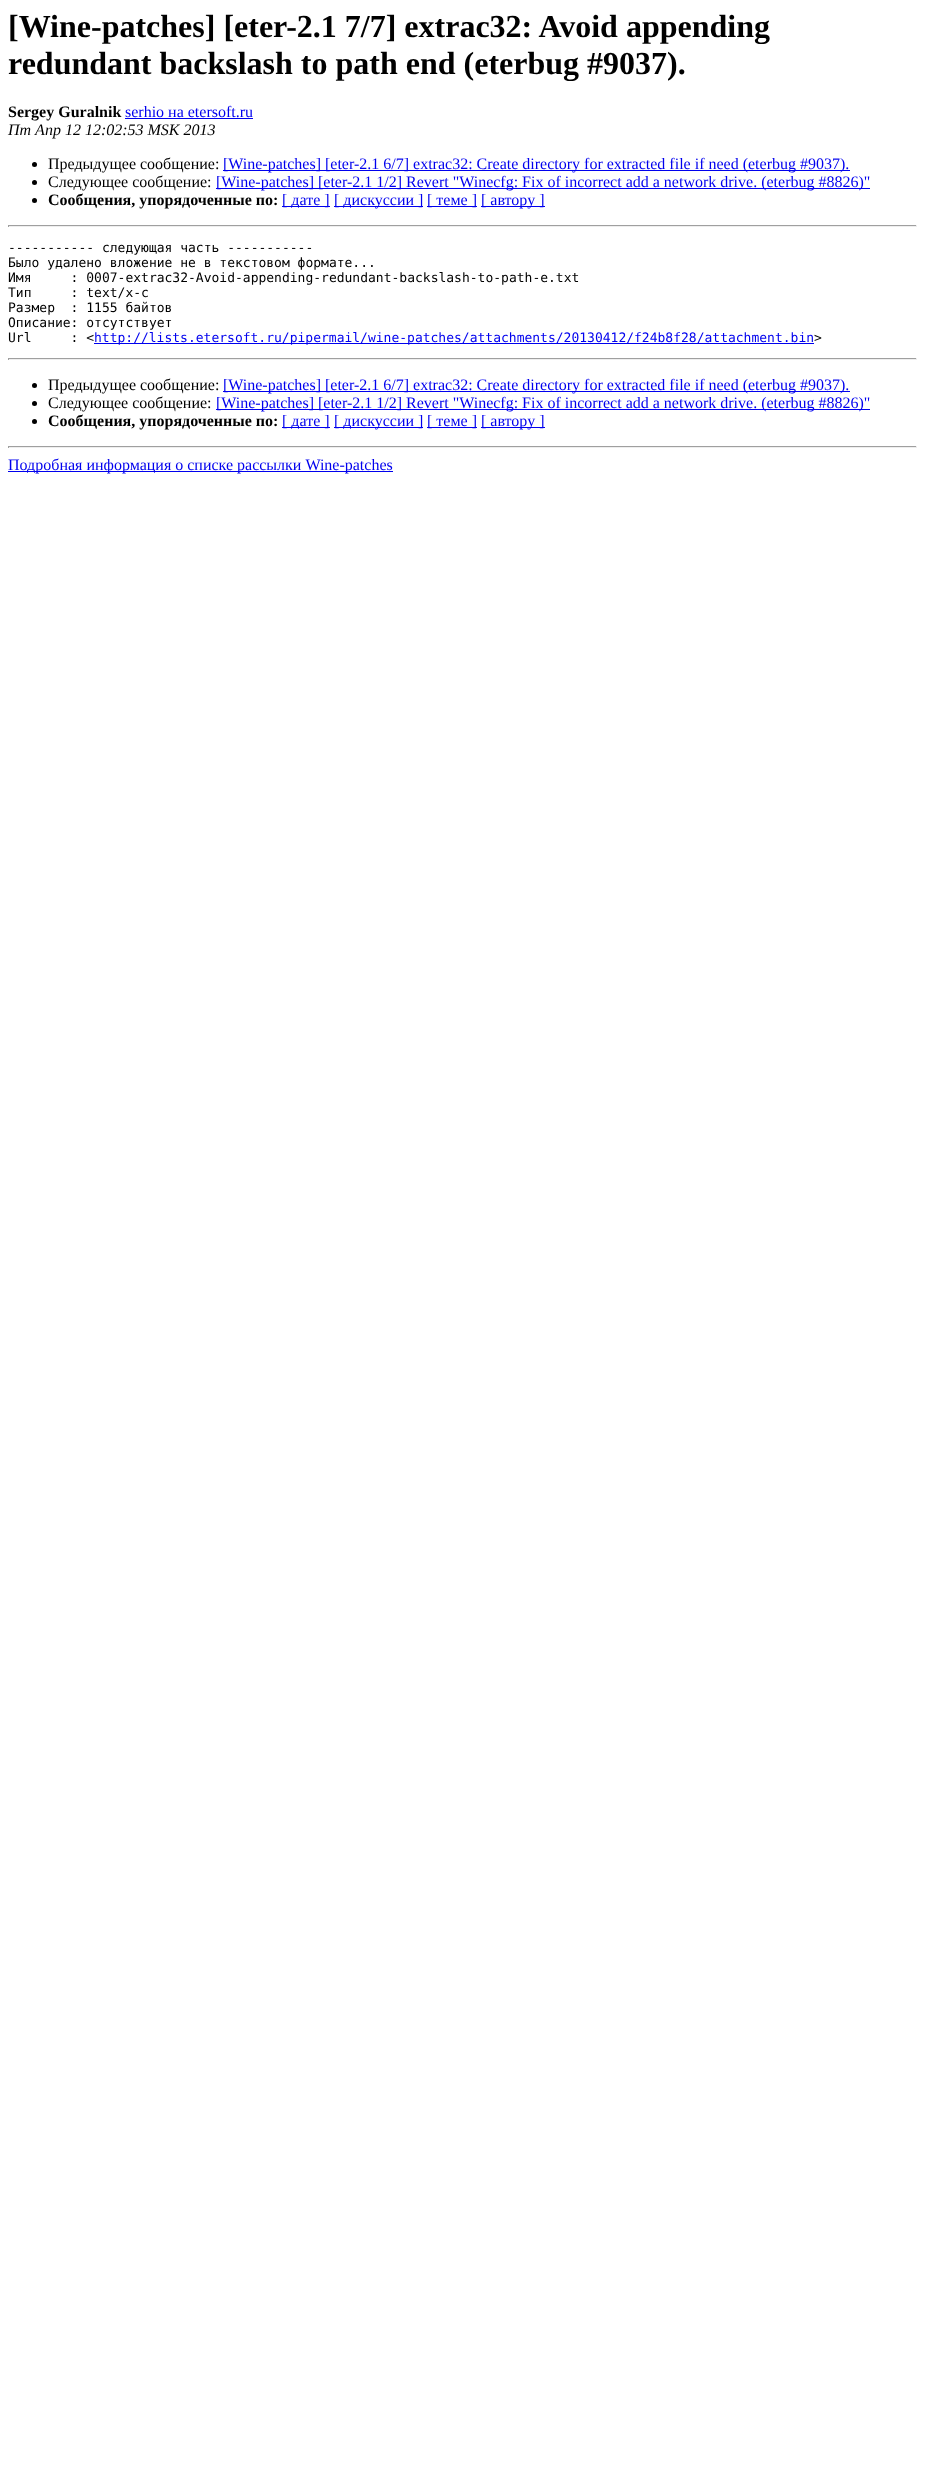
<!DOCTYPE html>
<meta charset="utf-8">
<style>body { margin: 0 } canvas { display: block }</style>
<canvas id="canvas" width="925" height="2474"></canvas>
<script type="module">
  const canvas = document.getElementById("canvas");
  const g = canvas.getContext("2d");
  g.miterLimit = 4;
  g.fontKerning = "normal";
  function drawText(s, x, y, [font, color]) {
    g.font = font;
    g.fillStyle = color;
    g.fillText(s, x, y);
  }
  function fillBox(x, y, w, h, color) {
    g.fillStyle = color;
    g.fillRect(x, y, w, h);
  }

  const s1 = ["bold 32px Liberation Serif", "#000000"];
  const s2 = ["bold 16px Liberation Serif", "#000000"];
  const s3 = ["16px Liberation Serif", "#0000EE"];
  const s4 = ["italic 16px Liberation Serif", "#000000"];
  const s5 = ["16px Liberation Serif", "#000000"];
  const s6 = ["13px DejaVu Sans Mono", "#000000"];
  const s7 = ["13px DejaVu Sans Mono", "#0000EE"];

  fillBox(0, 0, 925, 2474, "#FFFFFF");
  drawText("[Wine-patches] [eter-2.1 7/7] extrac32: Avoid appending", 8, 37, s1);
  drawText("redundant backslash to path end (eterbug #9037).", 8, 74, s1);
  drawText("Sergey Guralnik", 8, 117, s2);
  drawText("serhio на etersoft.ru", 125, 117, s3);
  fillBox(125, 118, 128, 1, "#0000EE");
  drawText("Пт Апр 12 12:02:53 MSK 2013", 8, 135, s4);
  g.beginPath();
  g.arc(34.5, 164.5, 2.5, 0, Math.PI * 2);
  g.fill();
  drawText("Предыдущее сообщение:", 48, 169, s5);
  fillBox(223, 170, 627, 1, "#0000EE");
  drawText("[Wine-patches] [eter-2.1 6/7] extrac32: Create directory for extracted file if need (eterbug #9037).", 223, 169, s3);
  g.fillStyle = "#000000";
  g.beginPath();
  g.arc(34.5, 182.5, 2.5, 0, Math.PI * 2);
  g.fill();
  drawText("Следующее сообщение:", 48, 187, s5);
  fillBox(216, 188, 654, 1, "#0000EE");
  drawText("[Wine-patches] [eter-2.1 1/2] Revert \"Winecfg: Fix of incorrect add a network drive. (eterbug #8826)\"", 216, 187, s3);
  g.fillStyle = "#000000";
  g.beginPath();
  g.arc(34.5, 200.5, 2.5, 0, Math.PI * 2);
  g.fill();
  drawText("Сообщения, упорядоченные по:", 48, 205, s2);
  fillBox(282, 206, 48, 1, "#0000EE");
  drawText("[ дате ]", 282, 205, s3);
  fillBox(334, 206, 89, 1, "#0000EE");
  drawText("[ дискуссии ]", 334, 205, s3);
  fillBox(427, 206, 50, 1, "#0000EE");
  drawText("[ теме ]", 427, 205, s3);
  fillBox(481, 206, 64, 1, "#0000EE");
  drawText("[ автору ]", 481, 205, s3);
  fillBox(8, 225, 909, 1, "#9F9F9F");
  fillBox(916, 225, 1, 2, "#EEEEEE");
  fillBox(8, 226, 909, 1, "#EEEEEE");
  fillBox(8, 225, 1, 2, "#9F9F9F");
  drawText("----------- следующая часть -----------", 8, 252, s6);
  drawText("Было удалено вложение не в текстовом формате...", 8, 267, s6);
  drawText("Имя     : 0007-extrac32-Avoid-appending-redundant-backslash-to-path-e.txt", 8, 282, s6);
  drawText("Тип     : text/x-c", 8, 297, s6);
  drawText("Размер  : 1155 байтов", 8, 312, s6);
  drawText("Описание: отсутствует", 8, 327, s6);
  drawText("Url     : <", 8, 342, s6);
  fillBox(94, 343, 720, 1, "#0000EE");
  drawText("http://lists.etersoft.ru/pipermail/wine-patches/attachments/20130412/f24b8f28/attachment.bin", 94, 342, s7);
  drawText(">", 814, 342, s6);
  fillBox(8, 358, 909, 1, "#9F9F9F");
  fillBox(916, 358, 1, 2, "#EEEEEE");
  fillBox(8, 359, 909, 1, "#EEEEEE");
  fillBox(8, 358, 1, 2, "#9F9F9F");
  g.fillStyle = "#000000";
  g.beginPath();
  g.arc(34.5, 385.5, 2.5, 0, Math.PI * 2);
  g.fill();
  drawText("Предыдущее сообщение:", 48, 390, s5);
  fillBox(223, 391, 627, 1, "#0000EE");
  drawText("[Wine-patches] [eter-2.1 6/7] extrac32: Create directory for extracted file if need (eterbug #9037).", 223, 390, s3);
  g.fillStyle = "#000000";
  g.beginPath();
  g.arc(34.5, 403.5, 2.5, 0, Math.PI * 2);
  g.fill();
  drawText("Следующее сообщение:", 48, 408, s5);
  fillBox(216, 409, 654, 1, "#0000EE");
  drawText("[Wine-patches] [eter-2.1 1/2] Revert \"Winecfg: Fix of incorrect add a network drive. (eterbug #8826)\"", 216, 408, s3);
  g.fillStyle = "#000000";
  g.beginPath();
  g.arc(34.5, 421.5, 2.5, 0, Math.PI * 2);
  g.fill();
  drawText("Сообщения, упорядоченные по:", 48, 426, s2);
  fillBox(282, 427, 48, 1, "#0000EE");
  drawText("[ дате ]", 282, 426, s3);
  fillBox(334, 427, 89, 1, "#0000EE");
  drawText("[ дискуссии ]", 334, 426, s3);
  fillBox(427, 427, 50, 1, "#0000EE");
  drawText("[ теме ]", 427, 426, s3);
  fillBox(481, 427, 64, 1, "#0000EE");
  drawText("[ автору ]", 481, 426, s3);
  fillBox(8, 446, 909, 1, "#9F9F9F");
  fillBox(916, 446, 1, 2, "#EEEEEE");
  fillBox(8, 447, 909, 1, "#EEEEEE");
  fillBox(8, 446, 1, 2, "#9F9F9F");
  fillBox(8, 471, 385, 1, "#0000EE");
  drawText("Подробная информация о списке рассылки Wine-patches", 8, 470, s3);
</script>
